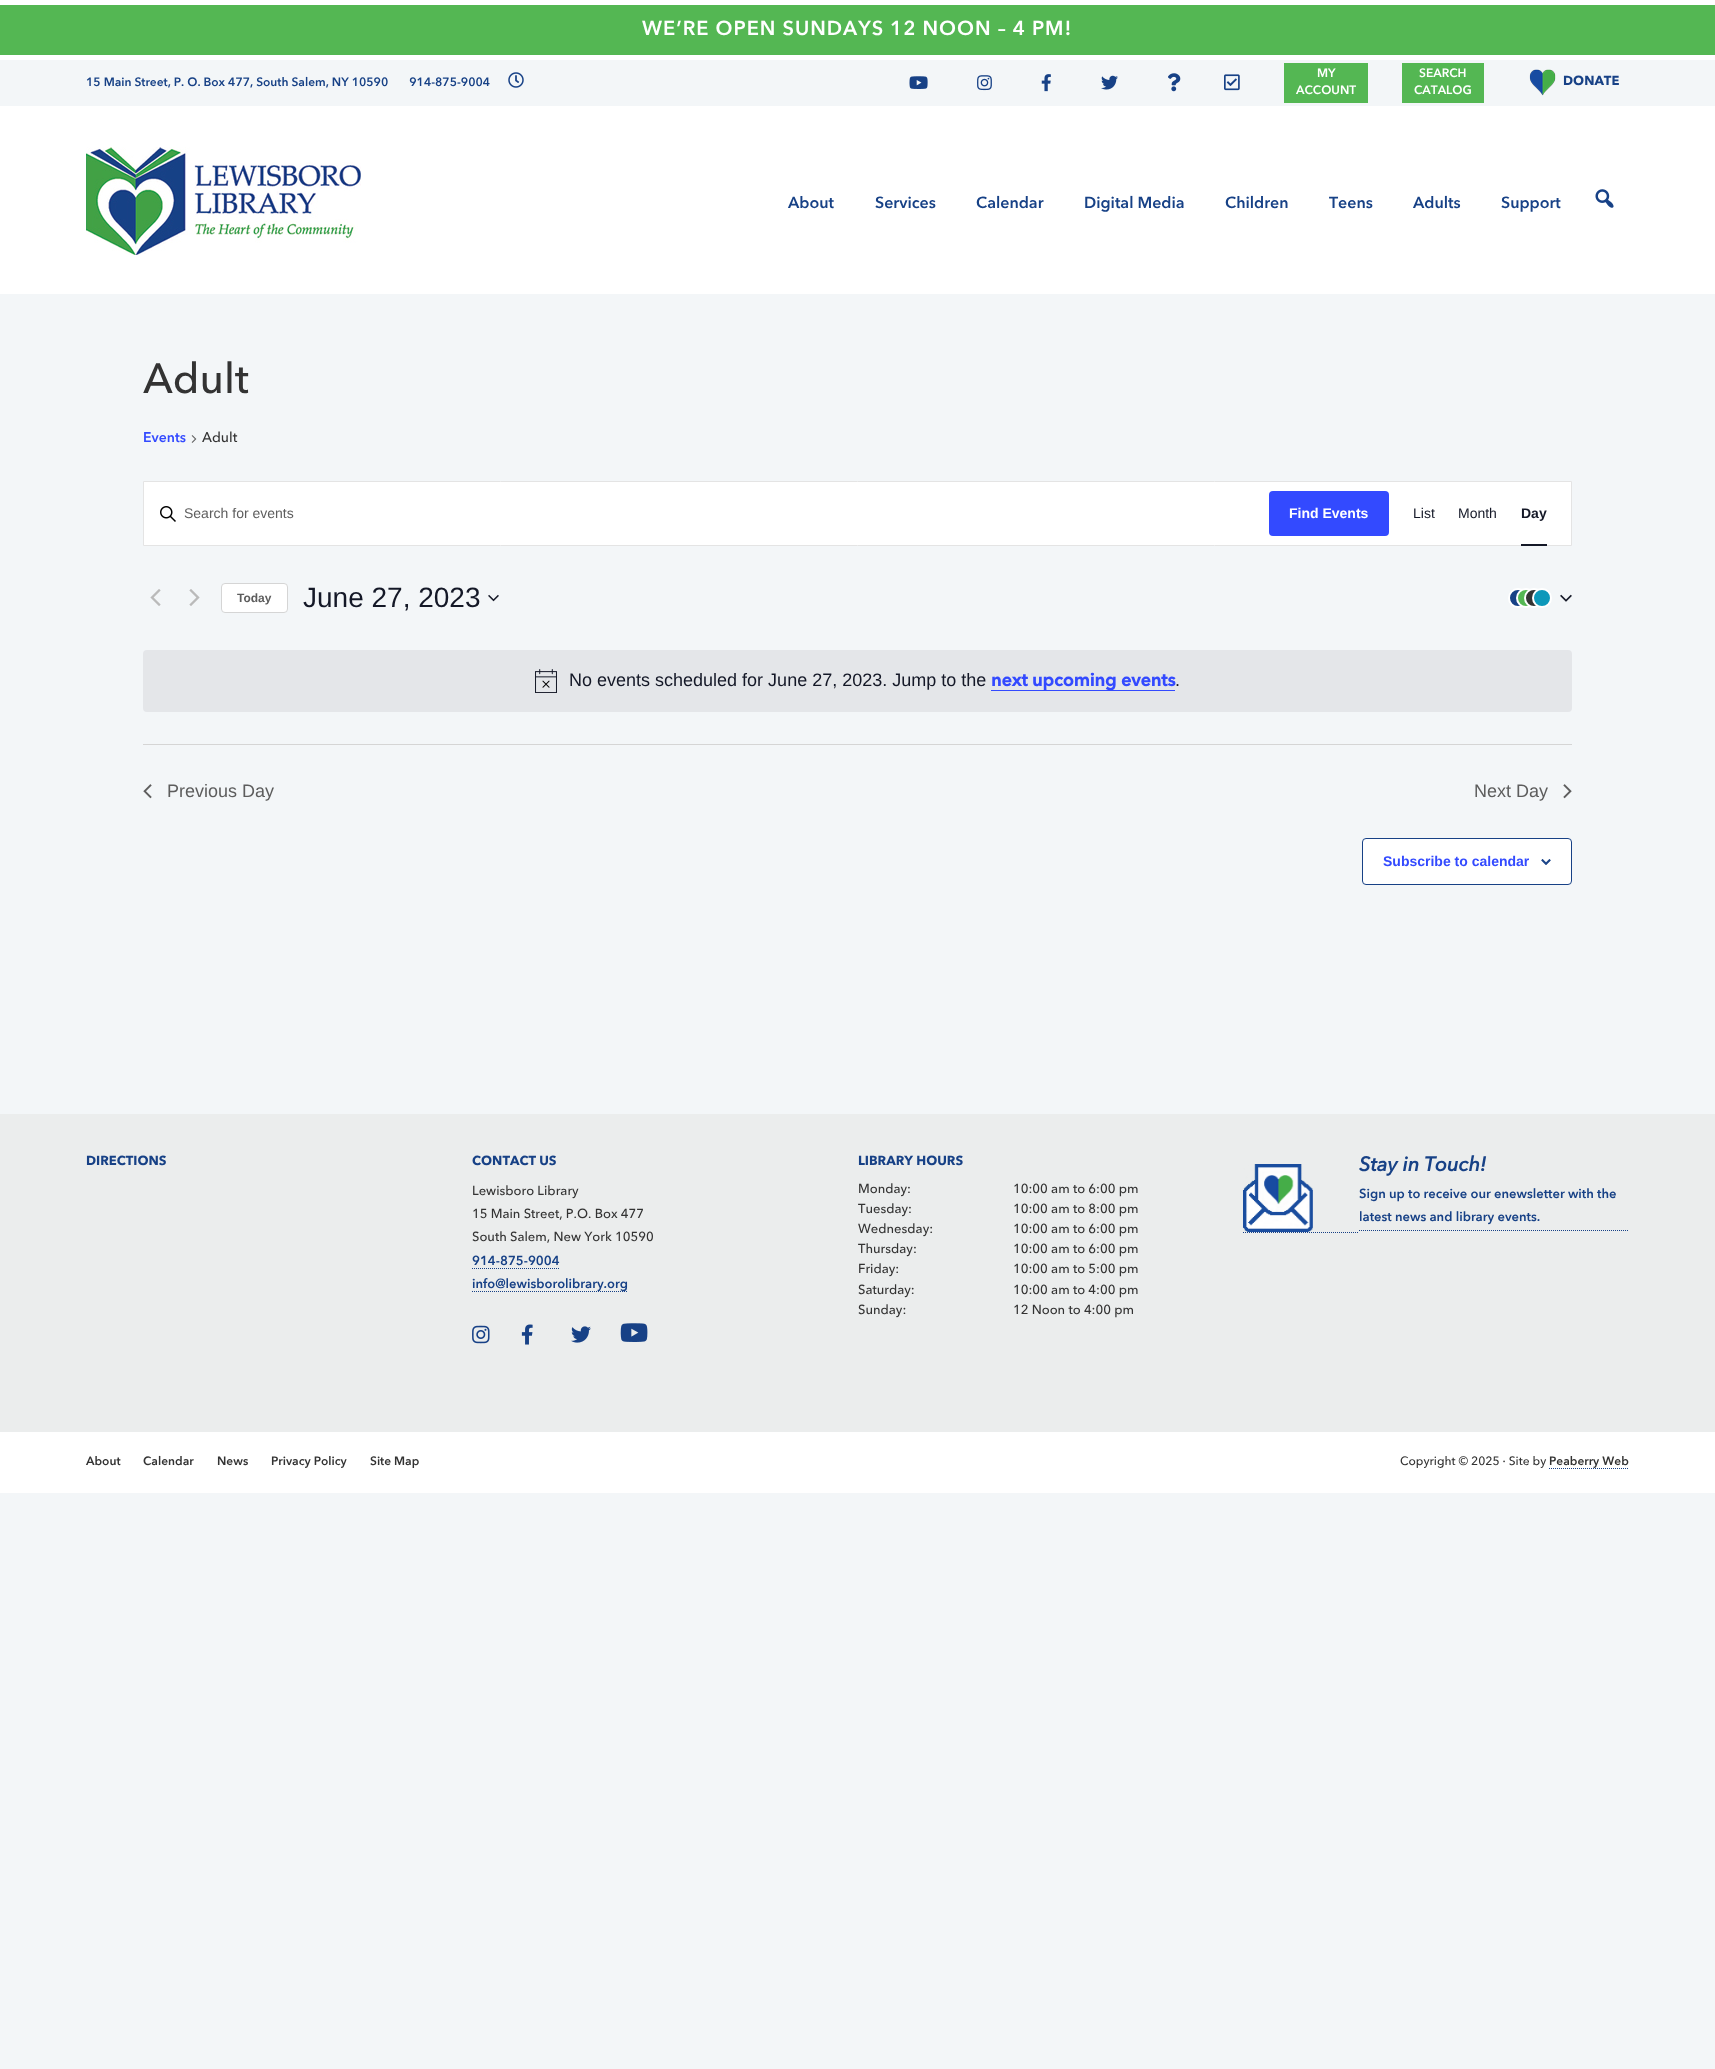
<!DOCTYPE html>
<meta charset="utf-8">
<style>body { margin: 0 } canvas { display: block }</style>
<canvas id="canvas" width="1715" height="2069"></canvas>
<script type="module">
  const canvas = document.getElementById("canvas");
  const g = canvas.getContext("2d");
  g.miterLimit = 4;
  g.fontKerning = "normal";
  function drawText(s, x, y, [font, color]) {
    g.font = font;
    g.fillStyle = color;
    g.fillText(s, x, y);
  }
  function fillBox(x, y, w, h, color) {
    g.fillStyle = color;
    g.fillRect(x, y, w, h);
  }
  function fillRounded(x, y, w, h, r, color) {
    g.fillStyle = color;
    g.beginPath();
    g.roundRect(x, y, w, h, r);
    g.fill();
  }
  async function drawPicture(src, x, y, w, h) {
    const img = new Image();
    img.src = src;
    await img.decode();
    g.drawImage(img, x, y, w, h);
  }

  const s1 = ["20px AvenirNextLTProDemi", "#FFFFFF"];
  const s2 = ["12px AvenirNextLTProDemi", "#174186"];
  const s3 = ["12px AvenirNextLTProDemi", "#FFFFFF"];
  const s4 = ["13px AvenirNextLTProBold", "#174186"];
  const s5 = ["16px AvenirNextLTProDemi", "#174186"];
  const s6 = ["42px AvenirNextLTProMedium", "#333333"];
  const s7 = ["14px AvenirNextLTProDemi", "#334AFF"];
  const s8 = ["14px AvenirNextLTProMedium", "#333333"];
  const s9 = ["14px Liberation Sans", "#5D5D5D"];
  const s10 = ["bold 14px Liberation Sans", "#FFFFFF"];
  const s11 = ["14px Liberation Sans", "#141827"];
  const s12 = ["bold 14px Liberation Sans", "#141827"];
  const s13 = ["bold 12px Liberation Sans", "#5D5D5D"];
  const s14 = ["28px Liberation Sans", "#141827"];
  const s15 = ["18px Liberation Sans", "#141827"];
  const s16 = ["bold 18px AvenirNextLTProDemi", "#334AFF"];
  const s17 = ["18px Liberation Sans", "#5D5D5D"];
  const s18 = ["bold 14px Liberation Sans", "#334AFF"];
  const s19 = ["13px AvenirNextLTProMedium", "#333333"];
  const s20 = ["13px AvenirNextLTProDemi", "#174186"];
  const s21 = ["bold 20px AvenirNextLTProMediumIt", "#174186"];
  const s22 = ["12px AvenirNextLTProDemi", "#333333"];
  const s23 = ["12px AvenirNextLTProMedium", "#333333"];

  fillBox(0, 0, 1715, 2069, "#F3F6F8");
  fillBox(0, 106, 1715, 1387, "#FFFFFF");
  fillBox(0, 5, 1715, 50, "#54B753");
  fillBox(0, 0, 1715, 5, "#FFFFFF");
  fillBox(0, 55, 1715, 5, "#FFFFFF");
  g.letterSpacing = "1px";
  drawText("WE’RE OPEN SUNDAYS 12 NOON – 4 PM!", 642, 35, s1);
  g.letterSpacing = "0px";
  drawText("15 Main Street, P. O. Box 477, South Salem, NY 10590       914-875-9004", 86, 86, s2);
  await drawPicture("pic1.png", 508, 72, 16, 16);
  await drawPicture("pic2.png", 909, 76, 19, 13);
  await drawPicture("pic3.png", 977, 75, 15, 16);
  await drawPicture("pic4.png", 1041, 74, 10, 18);
  await drawPicture("pic5.png", 1101, 75, 17, 15);
  await drawPicture("pic6.png", 1168, 73, 13, 19);
  await drawPicture("pic7.png", 1224, 74, 16, 17);
  fillBox(1284, 63, 84, 40, "#54B753");
  drawText("MY", 1317, 77, s3);
  drawText("ACCOUNT", 1296, 94, s3);
  fillBox(1402, 63, 82, 40, "#54B753");
  drawText("SEARCH", 1419, 77, s3);
  drawText("CATALOG", 1414, 94, s3);
  await drawPicture("pic8.png", 1529, 69, 27, 27);
  drawText("DONATE", 1563, 85, s4);
  await drawPicture("pic9.png", 86, 147, 275, 108);
  drawText("About", 788, 208, s5);
  drawText("Services", 875, 208, s5);
  drawText("Calendar", 976, 208, s5);
  drawText("Digital Media", 1084, 208, s5);
  drawText("Children", 1225, 208, s5);
  drawText("Teens", 1329, 208, s5);
  drawText("Adults", 1413, 208, s5);
  drawText("Support", 1501, 208, s5);
  await drawPicture("pic10.png", 1595, 189, 19, 19);
  fillBox(0, 294, 1715, 820, "#F3F6F8");
  drawText("Adult", 143, 393, s6);
  drawText("Events", 143, 442, s7);
  await drawPicture("pic11.png", 191, 435, 6, 8);
  drawText("Adult", 202, 442, s8);
  g.fillStyle = "#FFFFFF";
  g.beginPath();
  g.rect(143.5, 481.5, 1428, 64);
  g.fill();
  g.strokeStyle = "#E4E4E4";
  g.stroke();
  await drawPicture("pic12.png", 160, 506, 16, 16);
  drawText("Search for events", 184, 518, s9);
  fillRounded(1269, 491, 120, 45, 4, "#334AFF");
  drawText("Find Events", 1289, 518, s10);
  drawText("List", 1413, 518, s11);
  drawText("Month", 1458, 518, s11);
  drawText("Day", 1521, 518, s12);
  fillBox(1521, 544, 26, 2, "#141827");
  await drawPicture("pic13.png", 150, 589, 11, 17);
  await drawPicture("pic14.png", 189, 589, 11, 17);
  g.fillStyle = "#FFFFFF";
  g.beginPath();
  g.roundRect(221.5, 583.5, 66, 29, 3.5);
  g.fill();
  g.strokeStyle = "#D5D5D5";
  g.stroke();
  drawText("Today", 237, 602, s13);
  drawText("June 27, 2023", 303, 607, s14);
  await drawPicture("pic15.png", 488, 594, 11, 8);
  g.fillStyle = "#174186";
  g.beginPath();
  g.arc(1518, 598, 9, 0, Math.PI * 2);
  g.fill();
  g.strokeStyle = "#FFFFFF";
  g.lineWidth = 2;
  g.stroke();
  g.fillStyle = "#54B753";
  g.beginPath();
  g.arc(1526, 598, 9, 0, Math.PI * 2);
  g.fill();
  g.stroke();
  g.fillStyle = "#333333";
  g.beginPath();
  g.arc(1534, 598, 9, 0, Math.PI * 2);
  g.fill();
  g.stroke();
  g.fillStyle = "#0D98BA";
  g.beginPath();
  g.arc(1542, 598, 9, 0, Math.PI * 2);
  g.fill();
  g.stroke();
  await drawPicture("pic16.png", 1560, 594, 12, 8);
  fillRounded(143, 650, 1429, 62, 4, "#E4E6E9");
  await drawPicture("pic17.png", 535, 669, 22, 24);
  drawText("No events scheduled for June 27, 2023. Jump to the", 569, 686, s15);
  fillBox(991, 690, 184, 1, "#334AFF");
  drawText("next upcoming events", 991, 686, s16);
  drawText(".", 1175, 686, s15);
  fillBox(143, 744, 1429, 1, "#D5D5D5");
  await drawPicture("pic18.png", 143, 784, 9, 15);
  drawText("Previous Day", 167, 797, s17);
  drawText("Next Day", 1474, 797, s17);
  await drawPicture("pic19.png", 1563, 784, 9, 15);
  g.fillStyle = "#FFFFFF";
  g.beginPath();
  g.roundRect(1362.5, 838.5, 209, 46, 3.5);
  g.fill();
  g.strokeStyle = "#174186";
  g.lineWidth = 1;
  g.stroke();
  drawText("Subscribe to calendar", 1383, 866, s18);
  await drawPicture("pic20.png", 1541, 859, 10, 6);
  fillBox(0, 1114, 1715, 318, "#EBEDED");
  drawText("DIRECTIONS", 86, 1165, s4);
  drawText("CONTACT US", 472, 1165, s4);
  drawText("Lewisboro Library", 472, 1195, s19);
  drawText("15 Main Street, P.O. Box 477", 472, 1218, s19);
  drawText("South Salem, New York 10590", 472, 1241, s19);
  drawText("914-875-9004", 472, 1265, s20);
  g.beginPath();
  g.moveTo(472, 1268.5);
  g.lineTo(559, 1268.5);
  g.setLineDash([1, 1]);
  g.stroke();
  g.beginPath();
  g.moveTo(472, 1291.5);
  g.lineTo(627, 1291.5);
  g.stroke();
  drawText("info@lewisborolibrary.org", 472, 1288, s20);
  await drawPicture("pic21.png", 472, 1325, 18, 19);
  await drawPicture("pic22.png", 521, 1324, 12, 21);
  await drawPicture("pic23.png", 571, 1326, 20, 17);
  await drawPicture("pic24.png", 620, 1323, 28, 19);
  drawText("LIBRARY HOURS", 858, 1165, s4);
  drawText("Monday:", 858, 1193, s19);
  drawText("10:00 am to 6:00 pm", 1013, 1193, s19);
  drawText("Tuesday:", 858, 1213, s19);
  drawText("10:00 am to 8:00 pm", 1013, 1213, s19);
  drawText("Wednesday:", 858, 1233, s19);
  drawText("10:00 am to 6:00 pm", 1013, 1233, s19);
  drawText("Thursday:", 858, 1253, s19);
  drawText("10:00 am to 6:00 pm", 1013, 1253, s19);
  drawText("Friday:", 858, 1273, s19);
  drawText("10:00 am to 5:00 pm", 1013, 1273, s19);
  drawText("Saturday:", 858, 1294, s19);
  drawText("10:00 am to 4:00 pm", 1013, 1294, s19);
  drawText("Sunday:", 858, 1314, s19);
  drawText("12 Noon to 4:00 pm", 1013, 1314, s19);
  g.beginPath();
  g.moveTo(1243, 1232.5);
  g.lineTo(1359, 1232.5);
  g.stroke();
  g.beginPath();
  g.moveTo(1359, 1230.5);
  g.lineTo(1629, 1230.5);
  g.stroke();
  await drawPicture("pic25.png", 1243, 1164, 70, 68);
  drawText("Stay in Touch!", 1359, 1171, s21);
  drawText("Sign up to receive our enewsletter with the", 1359, 1198, s20);
  drawText("latest news and library events.", 1359, 1221, s20);
  drawText("About", 86, 1465, s22);
  drawText("Calendar", 143, 1465, s22);
  drawText("News", 217, 1465, s22);
  drawText("Privacy Policy", 271, 1465, s22);
  drawText("Site Map", 370, 1465, s22);
  drawText("Copyright © 2025 · Site by", 1400, 1465, s23);
  drawText("Peaberry Web", 1549, 1465, s22);
  g.beginPath();
  g.moveTo(1549, 1468.5);
  g.lineTo(1629, 1468.5);
  g.stroke();
</script>
